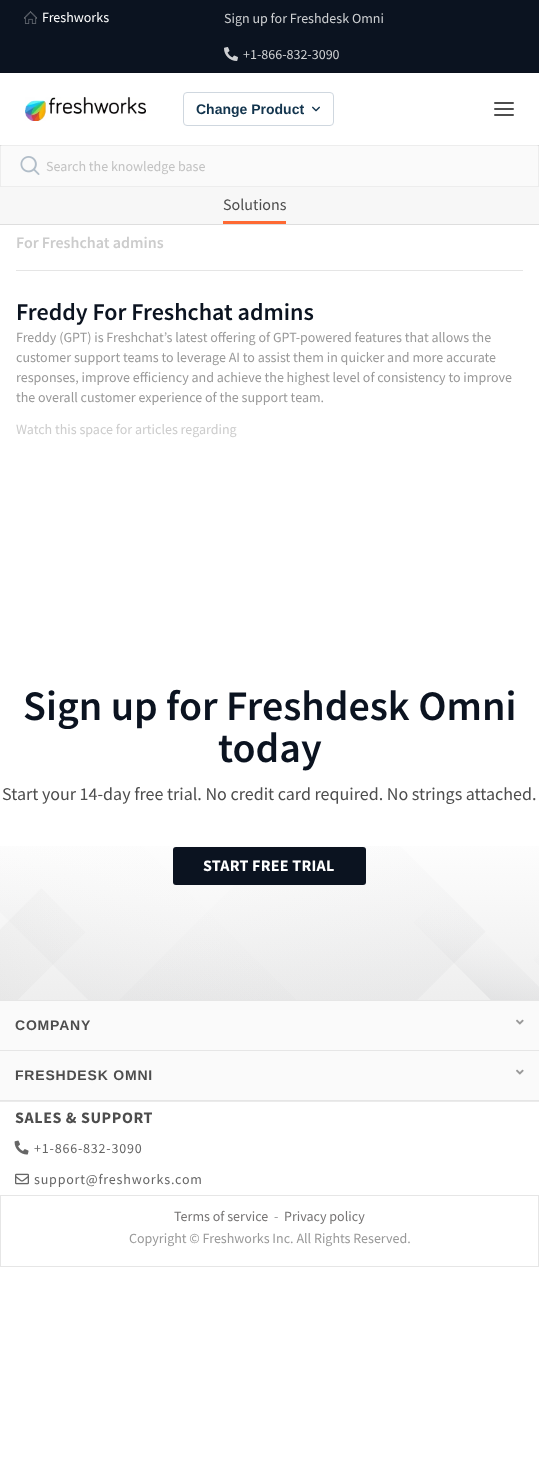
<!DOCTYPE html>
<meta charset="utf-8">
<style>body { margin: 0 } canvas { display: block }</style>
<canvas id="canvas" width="539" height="1473"></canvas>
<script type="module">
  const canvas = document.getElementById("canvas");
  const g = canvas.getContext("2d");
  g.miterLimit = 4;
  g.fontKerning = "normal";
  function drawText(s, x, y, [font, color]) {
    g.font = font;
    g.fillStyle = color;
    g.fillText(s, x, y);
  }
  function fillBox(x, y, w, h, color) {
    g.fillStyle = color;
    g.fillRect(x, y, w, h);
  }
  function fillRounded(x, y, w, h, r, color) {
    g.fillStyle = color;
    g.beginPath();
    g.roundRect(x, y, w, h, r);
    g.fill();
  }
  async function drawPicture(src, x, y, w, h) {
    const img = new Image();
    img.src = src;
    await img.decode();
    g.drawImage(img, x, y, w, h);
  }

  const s1 = ["14px Source Sans Pro", "#FFFFFF"];
  const s2 = ["14px Source Sans Pro", "#CED0D2"];
  const s3 = ["bold 14px Liberation Sans", "#12344D"];
  const s4 = ["14px Source Sans Pro", "#C2C2C2"];
  const s5 = ["16px Source Sans Pro", "#4D4D4D"];
  const s6 = ["600 16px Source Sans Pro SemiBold", "#CCCCCC"];
  const s7 = ["600 24px Source Sans Pro SemiBold", "#0B1320"];
  const s8 = ["14px Source Sans Pro", "#999999"];
  const s9 = ["14px Source Sans Pro", "#CCCCCC"];
  const s10 = ["600 42px Source Sans Pro SemiBold", "#0B1320"];
  const s11 = ["18px Source Sans Pro", "#4D4D4D"];
  const s12 = ["bold 16px Source Sans Pro", "#FFFFFF"];
  const s13 = ["bold 14px Liberation Sans", "#4D4D4D"];
  const s14 = ["bold 16px Source Sans Pro", "#4D4D4D"];
  const s15 = ["14px Source Sans Pro", "#666666"];
  const s16 = ["14px Source Sans Pro", "#767474"];

  fillBox(0, 0, 539, 1473, "#FFFFFF");
  fillBox(0, 0, 539, 72, "#0B1320");
  fillBox(0, 72, 539, 1, "#0A111D");
  await drawPicture("pic1.png", 24, 11, 13, 13);
  drawText("Freshworks", 42, 22, s1);
  drawText("Sign up for Freshdesk Omni", 224, 23, s2);
  await drawPicture("pic2.png", 224, 47, 14, 14);
  drawText("+1-866-832-3090", 243, 59, s2);
  await drawPicture("pic3.png", 25, 97, 121, 24);
  g.beginPath();
  g.roundRect(183.5, 92.5, 150, 33, 3.5);
  g.strokeStyle = "#CFD7DF";
  g.stroke();
  drawText("Change Product", 196, 114, s3);
  await drawPicture("pic4.png", 312, 106, 8, 6);
  g.beginPath();
  g.moveTo(495, 103);
  g.lineTo(513, 103);
  g.moveTo(495, 109);
  g.lineTo(513, 109);
  g.moveTo(495, 115);
  g.lineTo(513, 115);
  g.strokeStyle = "#4D4D4D";
  g.lineWidth = 2;
  g.lineCap = "round";
  g.stroke();
  fillBox(0, 146, 539, 78, "#F7F7F7");
  fillBox(0, 145, 539, 1, "#DEDEDE");
  fillRounded(0, 145, 539, 42, 2, "#FAFAFA");
  g.strokeStyle = "rgba(0, 0, 0, 0.05)";
  g.lineWidth = 1;
  g.strokeRect(0.5, 145.5, 538, 41);
  await drawPicture("pic5.png", 20, 156, 20, 19);
  drawText("Search the knowledge base", 46, 171, s4);
  fillBox(0, 224, 539, 1, "#DEDEDE");
  fillBox(223, 221, 63, 3, "#FE6933");
  drawText("Solutions", 223, 210, s5);
  fillBox(16, 270, 507, 1, "#E5E5E5");
  drawText("For Freshchat admins", 16, 248, s6);
  drawText("Freddy For Freshchat admins", 16, 320, s7);
  drawText("Freddy (GPT) is Freshchat’s latest offering of GPT-powered features that allows the", 16, 342, s8);
  drawText("customer support teams to leverage AI to assist them in quicker and more accurate", 16, 362, s8);
  drawText("responses, improve efficiency and achieve the highest level of consistency to improve", 16, 382, s8);
  drawText("the overall customer experience of the support team.", 16, 402, s8);
  drawText("Watch this space for articles regarding", 16, 434, s9);
  await drawPicture("pic6.png", 0, 846, 539, 154);
  drawText("Sign up for Freshdesk Omni", 23, 720, s10);
  drawText("today", 218, 762, s10);
  drawText("Start your 14-day free trial. No credit card required. No strings attached.", 2, 800, s11);
  fillRounded(173, 847, 193, 38, 3, "#0B1320");
  g.letterSpacing = "0.25px";
  drawText("START FREE TRIAL", 203, 871, s12);
  fillBox(0, 1000, 539, 1, "#E6E6E6");
  fillBox(0, 1001, 539, 49, "#FAFAFA");
  fillBox(0, 1050, 539, 1, "#E6E6E6");
  g.letterSpacing = "0.8px";
  drawText("COMPANY", 15, 1030, s13);
  await drawPicture("pic7.png", 516, 1019, 8, 6);
  fillBox(0, 1051, 539, 49, "#FAFAFA");
  fillBox(0, 1100, 539, 1, "#E6E6E6");
  drawText("FRESHDESK OMNI", 15, 1080, s13);
  await drawPicture("pic7.png", 516, 1069, 8, 6);
  fillBox(0, 1101, 539, 1, "#EBEBEB");
  g.letterSpacing = "0.6px";
  drawText("SALES & SUPPORT", 15, 1123, s14);
  await drawPicture("pic8.png", 14, 1140, 15, 15);
  g.letterSpacing = "0.8px";
  drawText("+1-866-832-3090", 34, 1153, s15);
  await drawPicture("pic9.png", 15, 1173, 14, 12);
  drawText("support@freshworks.com", 34, 1184, s15);
  g.strokeStyle = "#E6E6E6";
  g.strokeRect(0.5, 1195.5, 538, 71);
  g.letterSpacing = "0px";
  drawText("Terms of service", 174, 1221, s16);
  drawText("-", 274, 1221, s8);
  drawText("Privacy policy", 284, 1221, s16);
  drawText("Copyright © Freshworks Inc. All Rights Reserved.", 129, 1243, s8);
</script>
